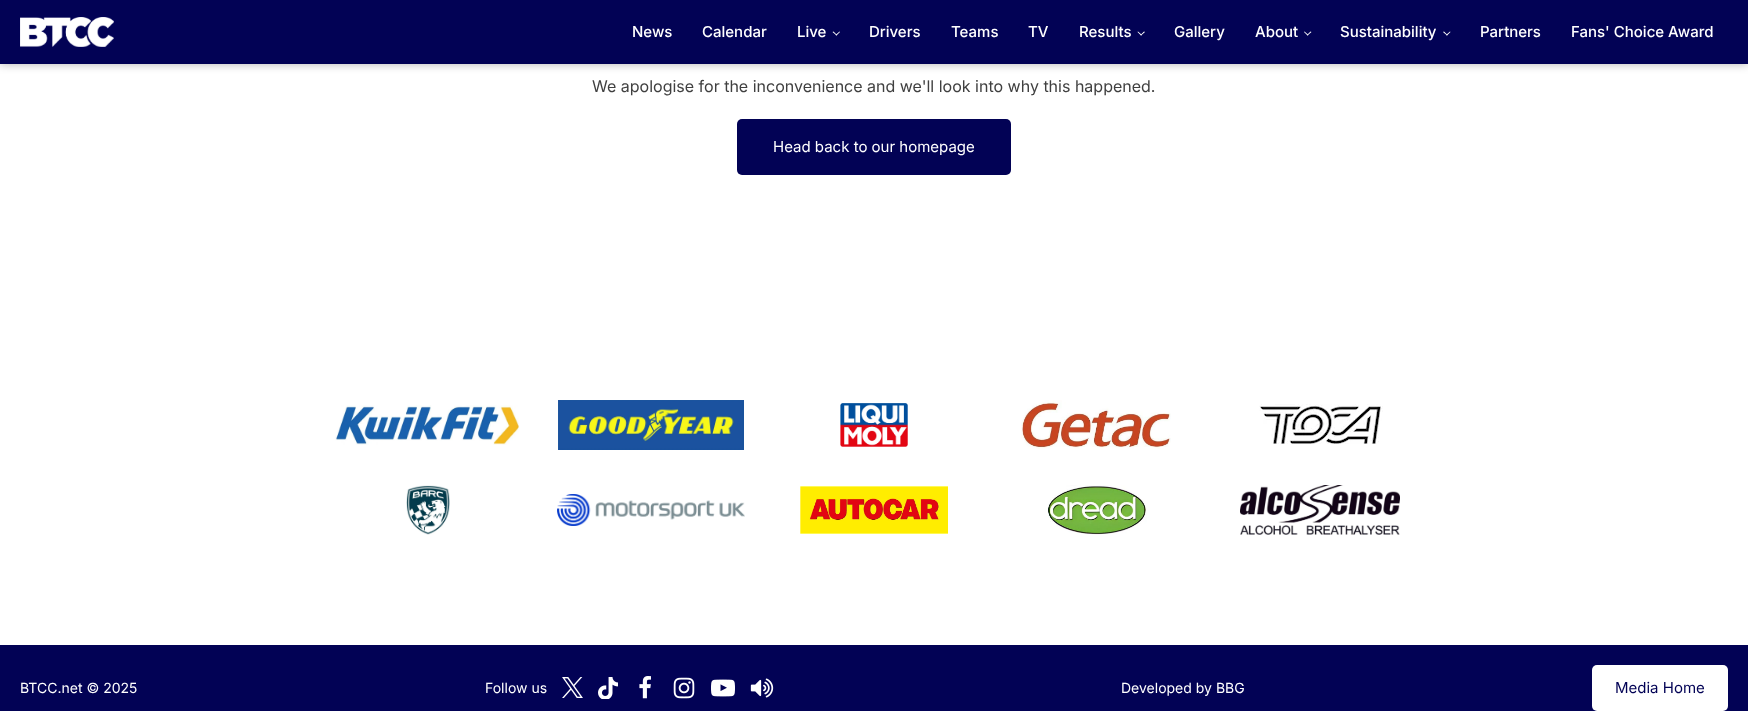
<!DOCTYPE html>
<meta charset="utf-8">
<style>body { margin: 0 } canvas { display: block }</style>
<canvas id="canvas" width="1748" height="711"></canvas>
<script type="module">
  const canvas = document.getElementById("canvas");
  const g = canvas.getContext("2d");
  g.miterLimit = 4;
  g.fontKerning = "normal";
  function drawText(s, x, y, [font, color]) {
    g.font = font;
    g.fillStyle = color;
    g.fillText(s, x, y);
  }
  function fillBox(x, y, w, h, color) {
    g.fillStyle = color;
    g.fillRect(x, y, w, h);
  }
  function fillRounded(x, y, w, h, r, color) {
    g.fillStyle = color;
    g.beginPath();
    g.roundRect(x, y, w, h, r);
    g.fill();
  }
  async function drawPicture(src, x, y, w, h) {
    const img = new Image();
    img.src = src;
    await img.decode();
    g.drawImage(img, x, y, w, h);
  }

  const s1 = ["500 15px Inter", "#FFFFFF"];
  const s2 = ["16px Inter", "#404040"];
  const s3 = ["15px Inter", "#FFFFFF"];
  const s4 = ["14px Inter", "#FFFFFF"];
  const s5 = ["15px Inter", "#020255"];

  fillBox(0, 0, 1748, 711, "#FFFFFF");
  g.fillStyle = "rgba(0, 0, 0, 0.3)";
  g.filter = "blur(5px)";
  g.beginPath();
  g.rect(0, 0, 1748, 64);
  g.fill();
  g.filter = "none";
  fillBox(0, 0, 1748, 64, "#020255");
  await drawPicture("pic1.png", 20, 17, 94, 30);
  drawText("News", 632, 37, s1);
  drawText("Calendar", 702, 37, s1);
  drawText("Live", 797, 37, s1);
  g.beginPath();
  g.moveTo(840, 32);
  g.lineTo(836.5, 35.5);
  g.lineTo(835.5, 35);
  g.lineTo(839.5, 31.5);
  g.closePath();
  g.fill();
  g.beginPath();
  g.moveTo(837, 35);
  g.lineTo(836.5, 35.5);
  g.lineTo(832.5, 32);
  g.lineTo(833.5, 31.5);
  g.closePath();
  g.fill();
  drawText("Drivers", 869, 37, s1);
  drawText("Teams", 951, 37, s1);
  drawText("TV", 1028, 37, s1);
  drawText("Results", 1079, 37, s1);
  g.beginPath();
  g.moveTo(1145, 32);
  g.lineTo(1141, 35.5);
  g.lineTo(1140.5, 35);
  g.lineTo(1144, 31.5);
  g.closePath();
  g.fill();
  g.beginPath();
  g.moveTo(1142, 35);
  g.lineTo(1141, 35.5);
  g.lineTo(1137.5, 32);
  g.lineTo(1138, 31.5);
  g.closePath();
  g.fill();
  drawText("Gallery", 1174, 37, s1);
  drawText("About", 1255, 37, s1);
  g.beginPath();
  g.moveTo(1311.5, 32);
  g.lineTo(1307.5, 35.5);
  g.lineTo(1307, 35);
  g.lineTo(1310.5, 31.5);
  g.closePath();
  g.fill();
  g.beginPath();
  g.moveTo(1308.5, 35);
  g.lineTo(1307.5, 35.5);
  g.lineTo(1304, 32);
  g.lineTo(1304.5, 31.5);
  g.closePath();
  g.fill();
  drawText("Sustainability", 1340, 37, s1);
  g.beginPath();
  g.moveTo(1450.5, 32);
  g.lineTo(1447, 35.5);
  g.lineTo(1446, 35);
  g.lineTo(1450, 31.5);
  g.closePath();
  g.fill();
  g.beginPath();
  g.moveTo(1447.5, 35);
  g.lineTo(1447, 35.5);
  g.lineTo(1443, 32);
  g.lineTo(1444, 31.5);
  g.closePath();
  g.fill();
  drawText("Partners", 1480, 37, s1);
  drawText("Fans' Choice Award", 1571, 37, s1);
  drawText("We apologise for the inconvenience and we'll look into why this happened.", 592, 92, s2);
  fillRounded(737, 119, 274, 56, 5, "#020255");
  drawText("Head back to our homepage", 773, 152, s3);
  await drawPicture("pic2.png", 335, 405, 185, 40);
  await drawPicture("pic3.png", 558, 400, 186, 50);
  await drawPicture("pic4.png", 840, 403, 68, 44);
  await drawPicture("pic5.png", 1021, 400, 150, 49);
  await drawPicture("pic6.png", 1259, 404, 124, 40);
  await drawPicture("pic7.png", 406, 485, 44, 50);
  await drawPicture("pic8.png", 557, 494, 188, 32);
  await drawPicture("pic9.png", 800, 486, 148, 48);
  await drawPicture("pic10.png", 1048, 485, 99, 50);
  await drawPicture("pic11.png", 1240, 485, 160, 50);
  fillBox(0, 645, 1748, 66, "#020255");
  drawText("BTCC.net © 2025", 20, 693, s4);
  drawText("Follow us", 485, 693, s4);
  await drawPicture("pic12.png", 562, 677, 21, 21);
  await drawPicture("pic13.png", 598, 677, 20, 22);
  await drawPicture("pic14.png", 639, 676, 12, 23);
  await drawPicture("pic15.png", 673, 677, 22, 22);
  await drawPicture("pic16.png", 711, 679, 24, 18);
  await drawPicture("pic17.png", 750, 678, 24, 20);
  drawText("Developed by BBG", 1121, 693, s4);
  fillRounded(1592, 665, 136, 46, 5, "#FFFFFF");
  drawText("Media Home", 1615, 693, s5);
</script>
